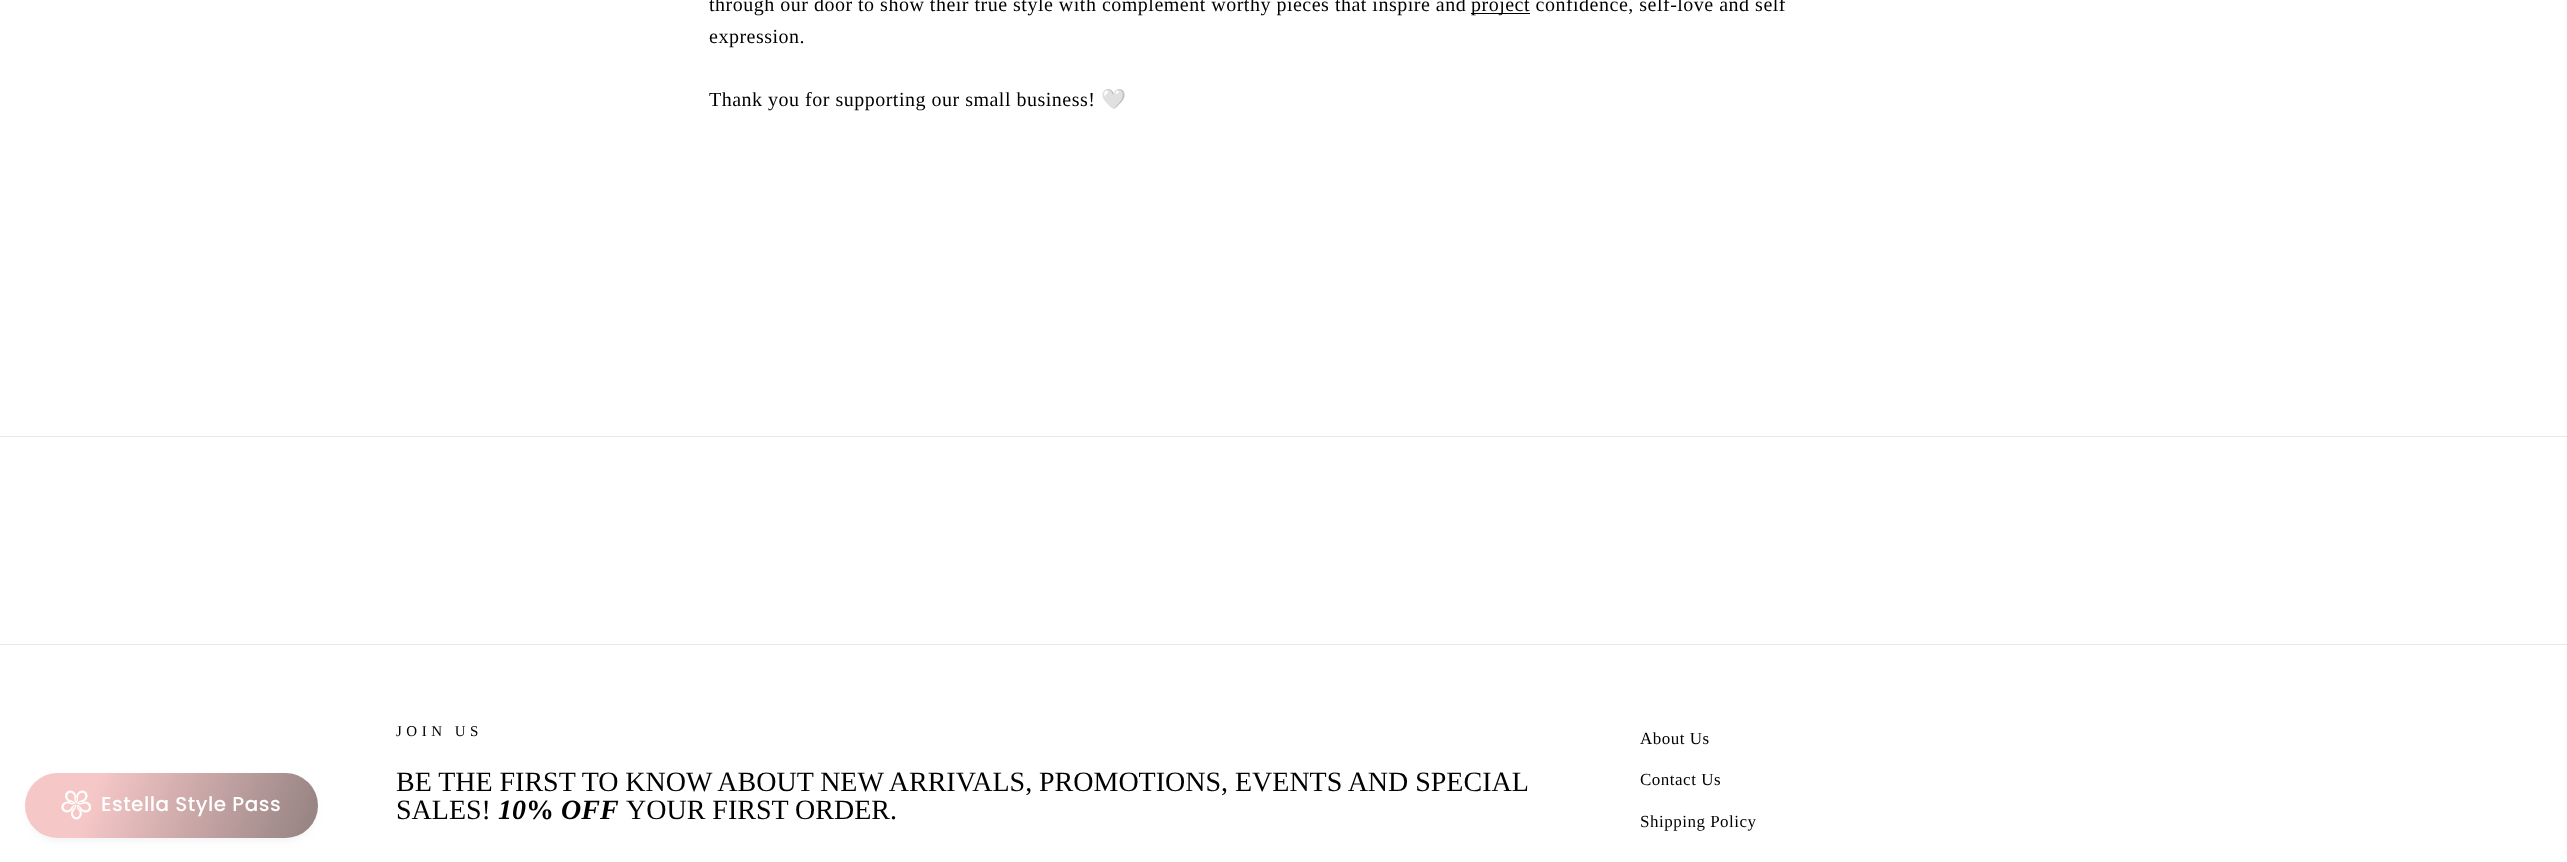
<!DOCTYPE html>
<meta charset="utf-8">
<style>body { margin: 0 } canvas { display: block }</style>
<canvas id="canvas" width="2567" height="862"></canvas>
<script type="module">
  const canvas = document.getElementById("canvas");
  const g = canvas.getContext("2d");
  g.miterLimit = 4;
  g.fontKerning = "normal";
  function drawText(s, x, y, [font, color]) {
    g.font = font;
    g.fillStyle = color;
    g.fillText(s, x, y);
  }
  function fillBox(x, y, w, h, color) {
    g.fillStyle = color;
    g.fillRect(x, y, w, h);
  }
  async function drawPicture(src, x, y, w, h) {
    const img = new Image();
    img.src = src;
    await img.decode();
    g.drawImage(img, x, y, w, h);
  }
  let gradient;

  const s1 = ["500 20px Poppins", "#FFFFFF"];
  const s2 = ["20px Liberation Serif", "#000000"];
  const s3 = ["20px Noto Color Emoji", "#000000"];
  const s4 = ["15px Liberation Serif", "#000000"];
  const s5 = ["28px Liberation Serif", "#000000"];
  const s6 = ["italic bold 28px Liberation Serif", "#000000"];
  const s7 = ["bold 28px Liberation Serif", "#000000"];
  const s8 = ["17px Liberation Serif", "#000000"];

  fillBox(0, 0, 2567, 862, "#FFFFFF");
  g.fillStyle = "rgba(68, 68, 68, 0.08)";
  g.filter = "blur(5px)";
  g.beginPath();
  g.roundRect(28, 780, 287, 60, 30);
  g.fill();
  g.filter = "none";
  gradient = g.createLinearGradient(31, 755, 424, 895);
  gradient.addColorStop(0.17, "#F6C7C7");
  gradient.addColorStop(1, "#605C5C");
  g.fillStyle = gradient;
  g.beginPath();
  g.roundRect(25, 773, 293, 65, 32.5);
  g.fill();
  await drawPicture("pic1.png", 61, 790, 30, 30);
  g.letterSpacing = "0.5px";
  drawText("Estella Style Pass", 101, 811, s1);
  drawText("through our door to show their true style with complement worthy pieces that inspire and", 709, 11, s2);
  fillBox(1471, 13, 59, 1, "#000000");
  drawText("project confidence, self-love and self", 1471, 11, s2);
  drawText("expression.", 709, 43, s2);
  drawText("Thank you for supporting our small business!", 709, 106, s2);
  drawText("🤍", 1101, 106, s3);
  fillBox(0, 436, 2567, 1, "#E8E8E1");
  fillBox(0, 644, 2567, 1, "#E8E8E1");
  g.letterSpacing = "4.5px";
  drawText("JOIN US", 396, 736, s4);
  g.letterSpacing = "0px";
  g.wordSpacing = "-0.1px";
  drawText("BE THE FIRST TO KNOW ABOUT NEW ARRIVALS, PROMOTIONS, EVENTS AND SPECIAL", 396, 791, s5);
  g.wordSpacing = "0px";
  drawText("SALES!", 396, 819, s5);
  drawText("10", 498, 819, s6);
  drawText("%", 526, 819, s7);
  drawText("OFF", 561, 819, s6);
  drawText("YOUR FIRST ORDER.", 626, 819, s5);
  g.letterSpacing = "0.5px";
  drawText("About Us", 1640, 744, s8);
  drawText("Contact Us", 1640, 785, s8);
  drawText("Shipping Policy", 1640, 827, s8);
</script>
